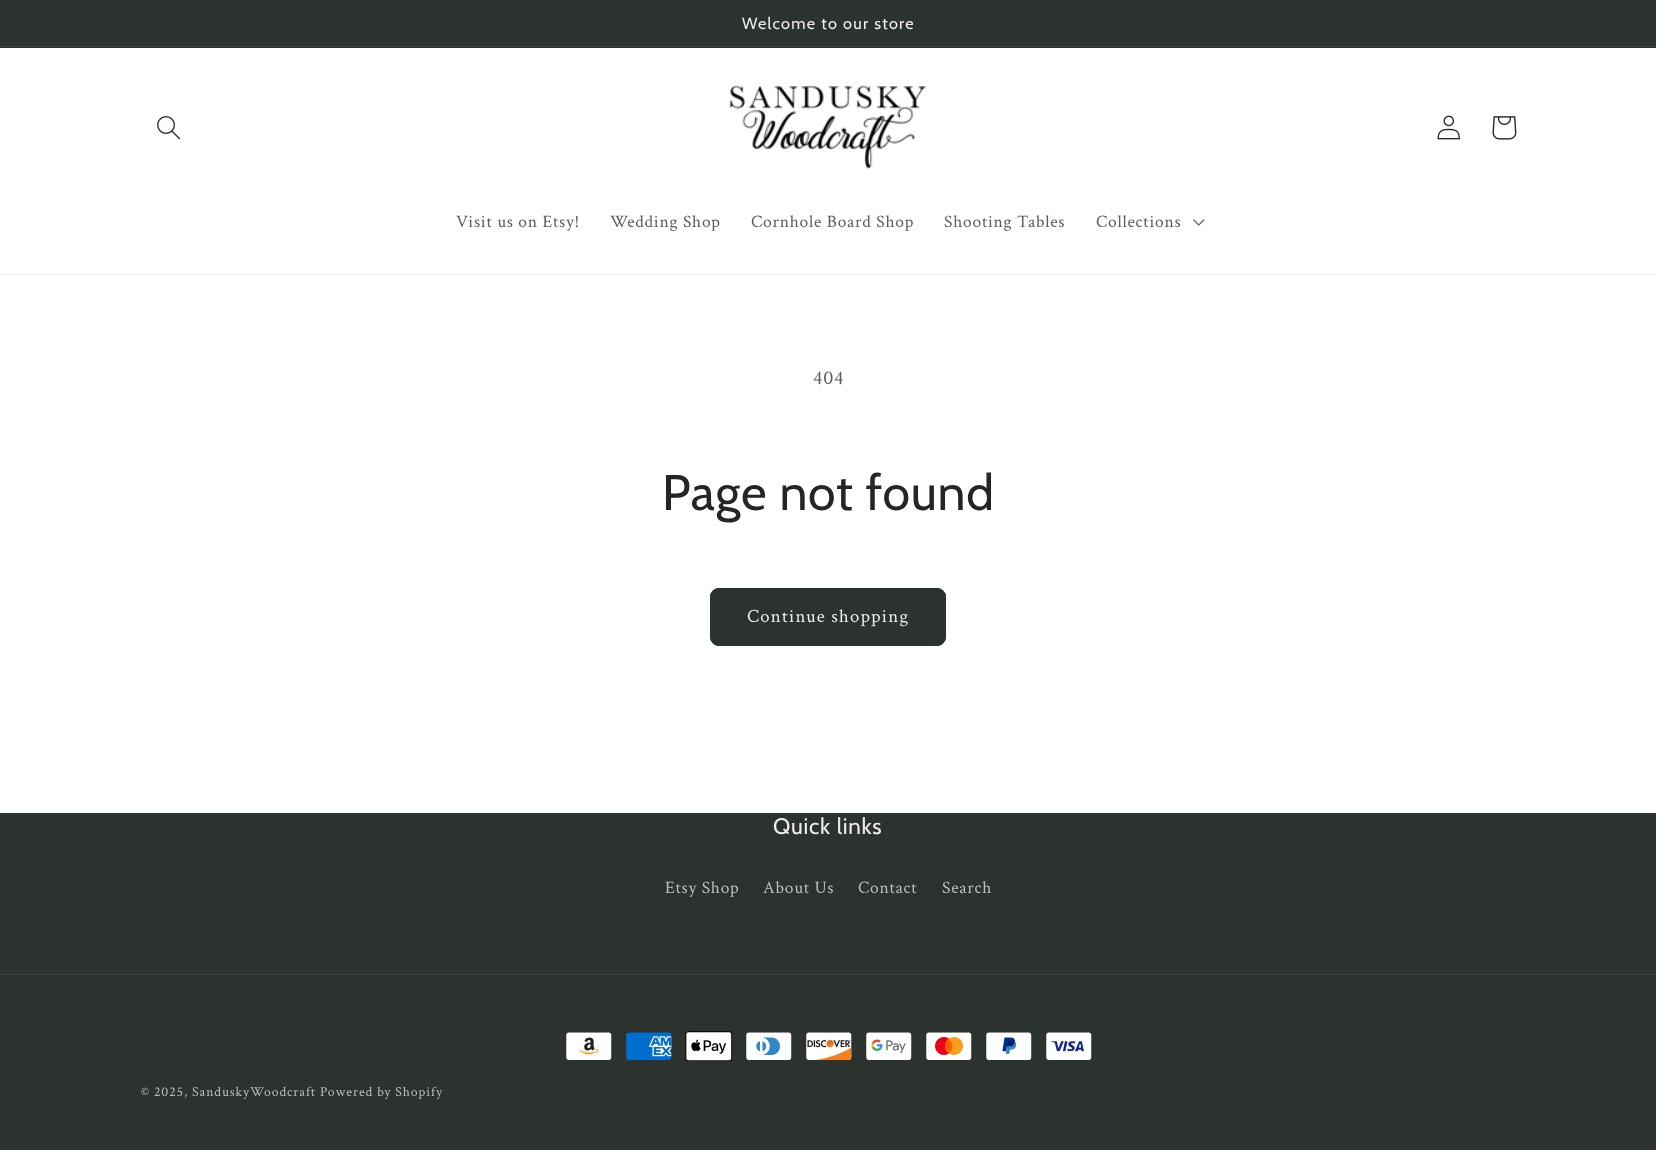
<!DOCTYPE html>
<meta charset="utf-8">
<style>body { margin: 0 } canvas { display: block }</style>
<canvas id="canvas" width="1656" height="1150"></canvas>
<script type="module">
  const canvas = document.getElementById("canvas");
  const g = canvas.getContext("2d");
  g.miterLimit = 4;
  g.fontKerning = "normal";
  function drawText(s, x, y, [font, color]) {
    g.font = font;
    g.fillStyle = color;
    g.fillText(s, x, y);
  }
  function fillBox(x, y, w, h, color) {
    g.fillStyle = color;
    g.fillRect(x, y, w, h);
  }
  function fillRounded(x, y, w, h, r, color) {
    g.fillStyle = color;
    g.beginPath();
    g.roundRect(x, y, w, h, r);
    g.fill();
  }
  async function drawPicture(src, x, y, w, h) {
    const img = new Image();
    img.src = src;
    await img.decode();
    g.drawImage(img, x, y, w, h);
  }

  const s1 = ["16.25px Cabin", "#EFECEC"];
  const s2 = ["17.5px Crimson Text", "#5C5C5C"];
  const s3 = ["20px Crimson Text", "#5C5C5C"];
  const s4 = ["50px Cabin", "#252525"];
  const s5 = ["18.75px Crimson Text", "#EFECEC"];
  const s6 = ["22.5px Cabin", "#EFECEC"];
  const s7 = ["17.5px Crimson Text", "#BEBEBD"];
  const s8 = ["13.75px Crimson Text", "#BEBEBD"];

  fillBox(0, 0, 1656, 1150, "#FFFFFF");
  fillBox(0, 0, 1656, 48, "#2C332F");
  fillBox(0, 46, 1656, 1, "#3C423E");
  g.letterSpacing = "1.25px";
  drawText("Welcome to our store", 742, 29, s1);
  fillBox(0, 274, 1656, 1, "#EEEEEE");
  await drawPicture("pic1.png", 157, 116, 23, 24);
  await drawPicture("pic2.png", 729, 85, 198, 84);
  await drawPicture("pic3.png", 1437, 115, 23, 25);
  await drawPicture("pic4.png", 1492, 116, 25, 24);
  g.letterSpacing = "0.75px";
  drawText("Visit us on Etsy!", 456, 227, s2);
  drawText("Wedding Shop", 610, 227, s2);
  drawText("Cornhole Board Shop", 751, 227, s2);
  drawText("Shooting Tables", 944, 227, s2);
  drawText("Collections", 1096, 227, s2);
  await drawPicture("pic5.png", 1193, 219, 12, 7);
  drawText("404", 813, 384, s3);
  drawText("Page not found", 662, 510, s4);
  fillRounded(710, 588, 236, 58, 9, "#2C332F");
  g.beginPath();
  g.roundRect(710.5, 588.5, 235, 57, 8.5);
  g.strokeStyle = "#2C332F";
  g.stroke();
  g.letterSpacing = "1.25px";
  drawText("Continue shopping", 747, 622, s5);
  fillBox(0, 813, 1656, 337, "#2C332F");
  g.letterSpacing = "0.75px";
  drawText("Quick links", 773, 834, s6);
  drawText("Etsy Shop", 665, 893, s7);
  drawText("About Us", 763, 893, s7);
  drawText("Contact", 858, 893, s7);
  drawText("Search", 942, 893, s7);
  fillBox(0, 974, 1656, 1, "#3C423E");
  await drawPicture("pic6.png", 566, 1032, 46, 28);
  await drawPicture("pic7.png", 626, 1032, 46, 28);
  await drawPicture("pic8.png", 685, 1031, 48, 30);
  await drawPicture("pic9.png", 746, 1032, 46, 28);
  await drawPicture("pic10.png", 806, 1032, 46, 28);
  await drawPicture("pic11.png", 866, 1032, 46, 28);
  await drawPicture("pic12.png", 926, 1032, 46, 28);
  await drawPicture("pic13.png", 986, 1032, 46, 28);
  await drawPicture("pic14.png", 1046, 1032, 46, 28);
  g.letterSpacing = "0.9px";
  drawText("© 2025, SanduskyWoodcraft Powered by Shopify", 141, 1096, s8);
</script>
